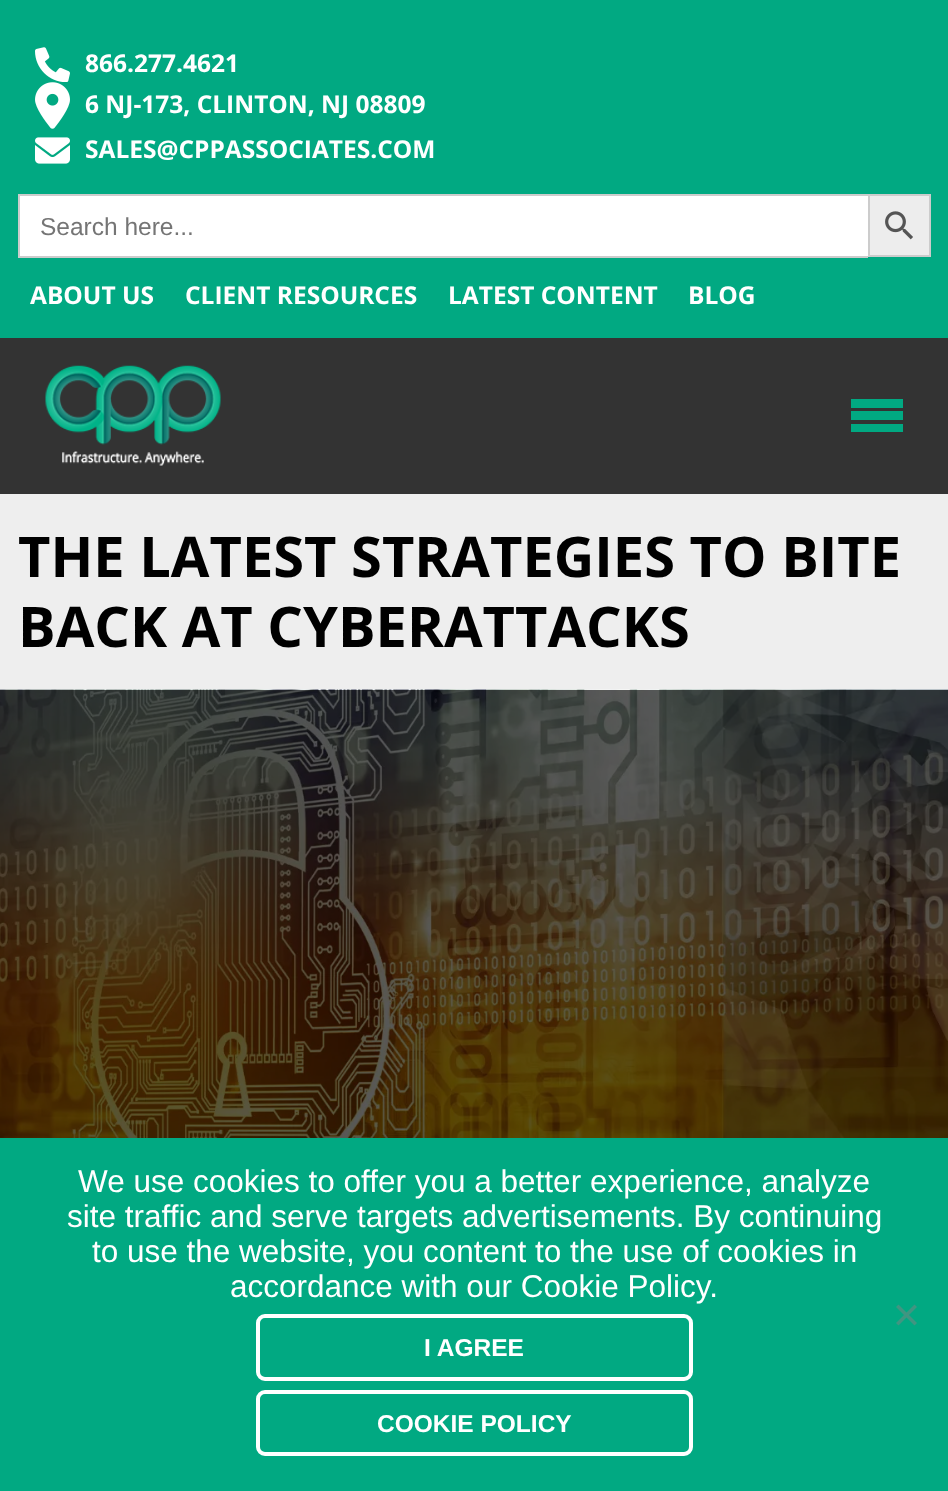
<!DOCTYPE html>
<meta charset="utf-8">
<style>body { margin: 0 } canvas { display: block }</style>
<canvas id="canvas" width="948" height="1491"></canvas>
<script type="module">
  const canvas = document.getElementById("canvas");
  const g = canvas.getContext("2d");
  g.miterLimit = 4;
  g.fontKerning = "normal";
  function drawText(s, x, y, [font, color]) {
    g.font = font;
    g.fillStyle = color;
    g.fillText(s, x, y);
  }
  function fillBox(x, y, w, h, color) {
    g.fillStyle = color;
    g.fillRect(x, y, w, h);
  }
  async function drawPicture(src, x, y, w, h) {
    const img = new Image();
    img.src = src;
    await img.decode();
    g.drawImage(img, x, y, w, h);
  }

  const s1 = ["bold 24.5px Open Sans", "#FFFFFF"];
  const s2 = ["24.5px Liberation Sans", "#757575"];
  const s3 = ["bold 56px Open Sans", "#000000"];
  const s4 = ["31.5px Liberation Sans", "#FFFFFF"];
  const s5 = ["bold 24.5px Liberation Sans", "#FFFFFF"];

  fillBox(0, 0, 948, 1491, "#01A982");
  await drawPicture("pic1.png", 35, 47, 35, 35);
  drawText("866.277.4621", 85, 72, s1);
  await drawPicture("pic2.png", 35, 82, 35, 47);
  drawText("6 NJ-173, CLINTON, NJ 08809", 85, 113, s1);
  await drawPicture("pic3.png", 35, 137, 35, 27);
  drawText("SALES@CPPASSOCIATES.COM", 85, 158, s1);
  fillBox(20, 196, 848, 60, "#FFFFFF");
  fillBox(18, 194, 850, 2, "#CCCCCC");
  fillBox(18, 256, 850, 2, "#CCCCCC");
  fillBox(18, 194, 2, 63, "#CCCCCC");
  drawText("Search here...", 40, 235, s2);
  g.fillStyle = "#EDEDED";
  g.beginPath();
  g.rect(869, 195, 61, 61);
  g.fill();
  g.strokeStyle = "#CCCCCC";
  g.lineWidth = 2;
  g.stroke();
  await drawPicture("pic4.png", 885, 211, 28, 29);
  drawText("ABOUT US", 30, 304, s1);
  drawText("CLIENT RESOURCES", 185, 304, s1);
  drawText("LATEST CONTENT", 448, 304, s1);
  drawText("BLOG", 688, 304, s1);
  fillBox(0, 338, 948, 156, "#333333");
  await drawPicture("pic5.png", 45, 365, 176, 101);
  fillBox(851, 399, 52, 9, "#01A982");
  fillBox(851, 411, 52, 9, "#01A982");
  fillBox(851, 424, 52, 8, "#01A982");
  fillBox(0, 494, 948, 196, "#EEEEEE");
  drawText("THE LATEST STRATEGIES TO BITE", 18, 577, s3);
  drawText("BACK AT CYBERATTACKS", 18, 647, s3);
  await drawPicture("pic6.png", 0, 689, 948, 449);
  drawText("We use cookies to offer you a better experience, analyze", 78, 1192, s4);
  drawText("site traffic and serve targets advertisements. By continuing", 67, 1227, s4);
  drawText("to use the website, you content to the use of cookies in", 92, 1262, s4);
  drawText("accordance with our Cookie Policy.", 230, 1297, s4);
  g.fillStyle = "#419581";
  g.beginPath();
  g.moveTo(914.5, 1304.5);
  g.lineTo(917, 1307);
  g.lineTo(898.5, 1325.5);
  g.lineTo(896, 1323);
  g.closePath();
  g.fill();
  g.beginPath();
  g.moveTo(896, 1307);
  g.lineTo(898.5, 1304.5);
  g.lineTo(917, 1323);
  g.lineTo(914.5, 1325.5);
  g.closePath();
  g.fill();
  g.beginPath();
  g.roundRect(258, 1316, 433, 63, 7);
  g.strokeStyle = "#FFFFFF";
  g.lineWidth = 4;
  g.stroke();
  drawText("I AGREE", 424, 1356, s5);
  g.beginPath();
  g.roundRect(258, 1392, 433, 62, 7);
  g.stroke();
  drawText("COOKIE POLICY", 377, 1432, s5);
</script>
